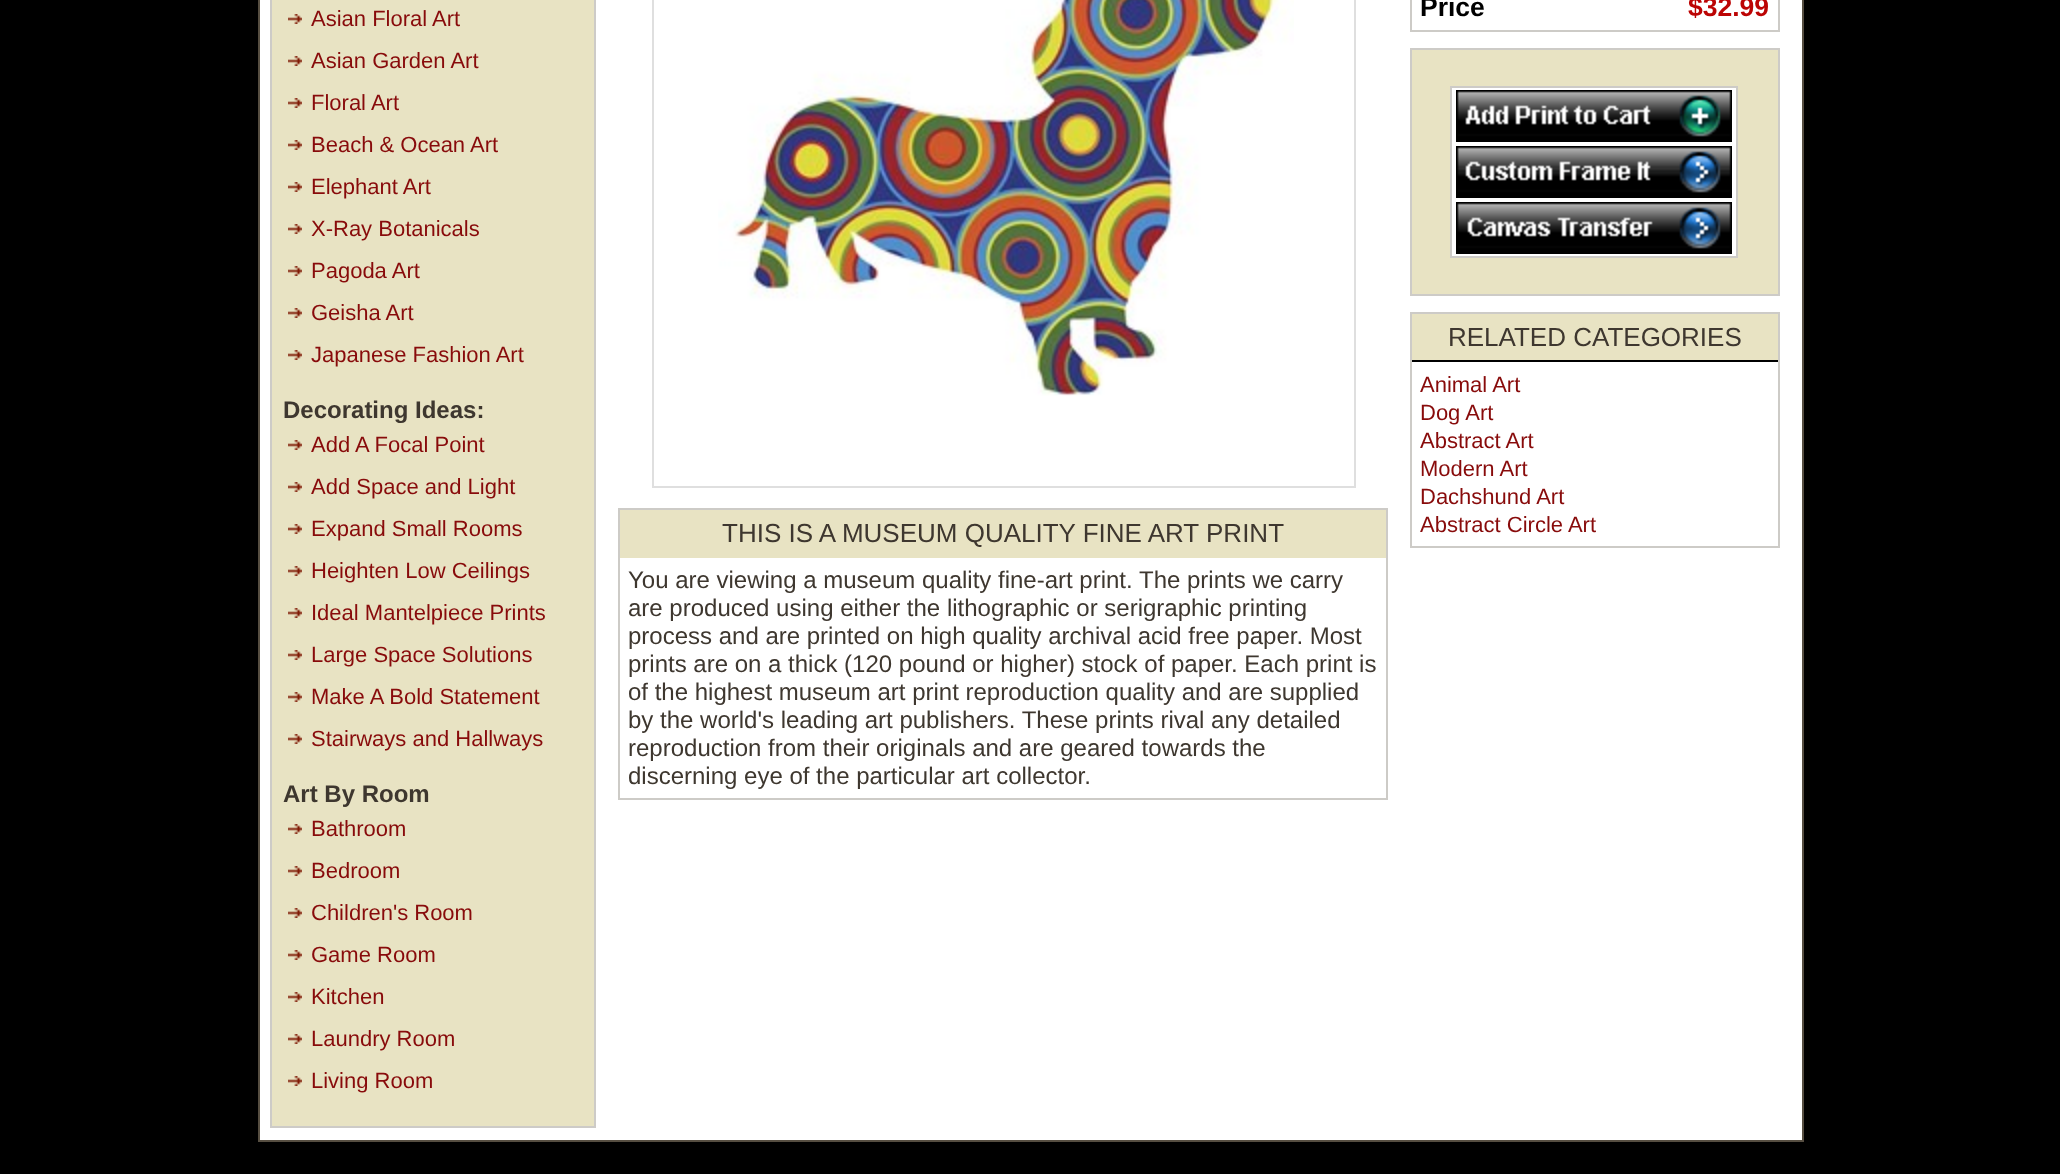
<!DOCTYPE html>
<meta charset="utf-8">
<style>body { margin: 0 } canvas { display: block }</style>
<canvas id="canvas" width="2060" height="1174"></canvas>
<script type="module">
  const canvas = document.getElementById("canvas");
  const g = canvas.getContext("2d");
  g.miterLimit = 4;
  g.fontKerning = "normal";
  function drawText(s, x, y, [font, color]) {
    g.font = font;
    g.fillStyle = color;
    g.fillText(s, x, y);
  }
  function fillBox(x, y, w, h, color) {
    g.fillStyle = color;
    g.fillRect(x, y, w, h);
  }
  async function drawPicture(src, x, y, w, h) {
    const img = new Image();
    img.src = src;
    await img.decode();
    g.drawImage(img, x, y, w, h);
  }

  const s1 = ["22px Liberation Sans", "#880B0B"];
  const s2 = ["bold 24px Liberation Sans", "#3E372F"];
  const s3 = ["bold 26.5px Liberation Sans", "#000000"];
  const s4 = ["bold 26.5px Liberation Sans", "#BC0404"];
  const s5 = ["26px Liberation Sans", "#3E372F"];
  const s6 = ["24px Liberation Sans", "#3E372F"];

  fillBox(0, 0, 2060, 1174, "#000000");
  g.fillStyle = "#FFFFFF";
  g.beginPath();
  g.rect(259, -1, 1544, 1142);
  g.fill();
  g.strokeStyle = "#564E41";
  g.lineWidth = 2;
  g.stroke();
  g.strokeStyle = "#CDCBC7";
  g.strokeRect(271, -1, 324, 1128);
  fillBox(272, 0, 322, 1126, "#E8E3C3");
  await drawPicture("pic1.png", 288, 14, 14, 10);
  drawText("Asian Floral Art", 311, 26, s1);
  await drawPicture("pic1.png", 288, 56, 14, 10);
  drawText("Asian Garden Art", 311, 68, s1);
  await drawPicture("pic1.png", 288, 98, 14, 10);
  drawText("Floral Art", 311, 110, s1);
  await drawPicture("pic1.png", 288, 140, 14, 10);
  drawText("Beach & Ocean Art", 311, 152, s1);
  await drawPicture("pic1.png", 288, 182, 14, 10);
  drawText("Elephant Art", 311, 194, s1);
  await drawPicture("pic1.png", 288, 224, 14, 10);
  drawText("X-Ray Botanicals", 311, 236, s1);
  await drawPicture("pic1.png", 288, 266, 14, 10);
  drawText("Pagoda Art", 311, 278, s1);
  await drawPicture("pic1.png", 288, 308, 14, 10);
  drawText("Geisha Art", 311, 320, s1);
  await drawPicture("pic1.png", 288, 350, 14, 10);
  drawText("Japanese Fashion Art", 311, 362, s1);
  drawText("Decorating Ideas:", 283, 418, s2);
  await drawPicture("pic1.png", 288, 440, 14, 10);
  drawText("Add A Focal Point", 311, 452, s1);
  await drawPicture("pic1.png", 288, 482, 14, 10);
  drawText("Add Space and Light", 311, 494, s1);
  await drawPicture("pic1.png", 288, 524, 14, 10);
  drawText("Expand Small Rooms", 311, 536, s1);
  await drawPicture("pic1.png", 288, 566, 14, 10);
  drawText("Heighten Low Ceilings", 311, 578, s1);
  await drawPicture("pic1.png", 288, 608, 14, 10);
  drawText("Ideal Mantelpiece Prints", 311, 620, s1);
  await drawPicture("pic1.png", 288, 650, 14, 10);
  drawText("Large Space Solutions", 311, 662, s1);
  await drawPicture("pic1.png", 288, 692, 14, 10);
  drawText("Make A Bold Statement", 311, 704, s1);
  await drawPicture("pic1.png", 288, 734, 14, 10);
  drawText("Stairways and Hallways", 311, 746, s1);
  drawText("Art By Room", 283, 802, s2);
  await drawPicture("pic1.png", 288, 824, 14, 10);
  drawText("Bathroom", 311, 836, s1);
  await drawPicture("pic1.png", 288, 866, 14, 10);
  drawText("Bedroom", 311, 878, s1);
  await drawPicture("pic1.png", 288, 908, 14, 10);
  drawText("Children's Room", 311, 920, s1);
  await drawPicture("pic1.png", 288, 950, 14, 10);
  drawText("Game Room", 311, 962, s1);
  await drawPicture("pic1.png", 288, 992, 14, 10);
  drawText("Kitchen", 311, 1004, s1);
  await drawPicture("pic1.png", 288, 1034, 14, 10);
  drawText("Laundry Room", 311, 1046, s1);
  await drawPicture("pic1.png", 288, 1076, 14, 10);
  drawText("Living Room", 311, 1088, s1);
  g.strokeRect(1411, -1, 368, 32);
  drawText("Price", 1420, 16, s3);
  drawText("$32.99", 1688, 16, s4);
  g.strokeRect(1411, 49, 368, 246);
  fillBox(1412, 50, 366, 244, "#E8E3C3");
  g.fillStyle = "#FFFFFF";
  g.beginPath();
  g.rect(1451, 87, 286, 170);
  g.fill();
  g.stroke();
  await drawPicture("pic2.png", 1456, 90, 276, 52);
  await drawPicture("pic3.png", 1456, 146, 276, 52);
  await drawPicture("pic4.png", 1456, 202, 276, 52);
  g.strokeRect(1411, 313, 368, 234);
  fillBox(1412, 314, 366, 46, "#E8E3C3");
  drawText("RELATED CATEGORIES", 1448, 346, s5);
  fillBox(1412, 360, 366, 2, "#000000");
  drawText("Animal Art", 1420, 392, s1);
  drawText("Dog Art", 1420, 420, s1);
  drawText("Abstract Art", 1420, 448, s1);
  drawText("Modern Art", 1420, 476, s1);
  drawText("Dachshund Art", 1420, 504, s1);
  drawText("Abstract Circle Art", 1420, 532, s1);
  g.strokeStyle = "#DFDFDF";
  g.strokeRect(653, -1, 702, 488);
  await drawPicture("pic5.png", 718, 0, 576, 396);
  g.strokeStyle = "#CDCBC7";
  g.strokeRect(619, 509, 768, 290);
  fillBox(620, 510, 766, 48, "#E8E3C3");
  drawText("THIS IS A MUSEUM QUALITY FINE ART PRINT", 722, 542, s5);
  drawText("You are viewing a museum quality fine-art print.", 628, 588, s6);
  drawText("The prints we carry", 1139, 588, s6);
  drawText("are produced using either the lithographic or serigraphic printing", 628, 616, s6);
  drawText("process and are printed on high quality archival acid free paper. Most", 628, 644, s6);
  drawText("prints are on a thick (120 pound or higher) stock of paper. Each print is", 628, 672, s6);
  drawText("of the highest museum art print reproduction quality and are supplied", 628, 700, s6);
  drawText("by the world's leading art publishers. These prints rival any detailed", 628, 728, s6);
  drawText("reproduction from their originals and are geared towards the", 628, 756, s6);
  drawText("discerning eye of the particular art collector.", 628, 784, s6);
</script>
